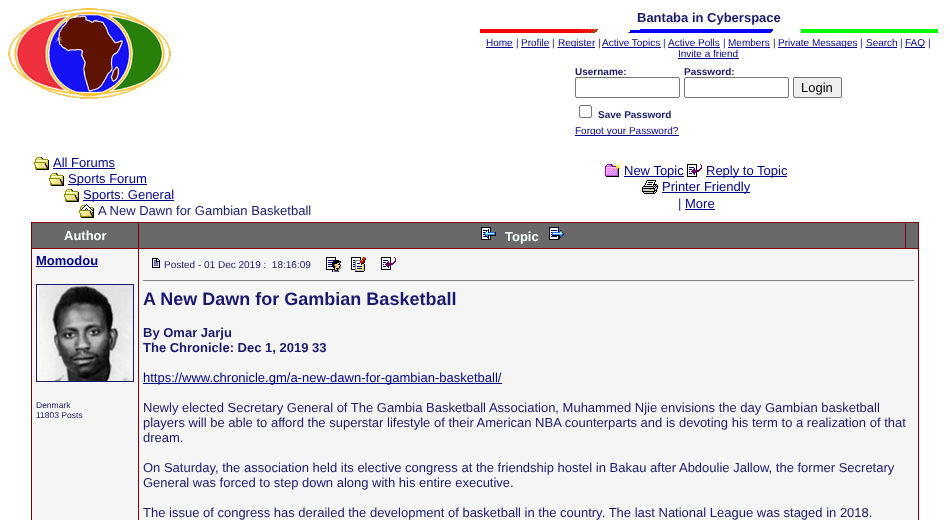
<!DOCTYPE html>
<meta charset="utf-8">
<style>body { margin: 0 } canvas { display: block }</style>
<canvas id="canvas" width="950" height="520"></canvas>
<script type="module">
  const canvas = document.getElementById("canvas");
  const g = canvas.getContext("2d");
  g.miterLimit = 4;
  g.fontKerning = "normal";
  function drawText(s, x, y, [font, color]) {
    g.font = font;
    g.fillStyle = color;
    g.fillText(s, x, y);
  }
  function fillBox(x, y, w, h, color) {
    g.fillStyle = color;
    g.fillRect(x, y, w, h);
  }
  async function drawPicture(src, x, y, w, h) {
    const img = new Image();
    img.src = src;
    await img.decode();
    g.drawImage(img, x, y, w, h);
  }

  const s1 = ["bold 13px Liberation Sans", "#191970"];
  const s2 = ["10px Liberation Sans", "#00008B"];
  const s3 = ["10px Liberation Sans", "#191970"];
  const s4 = ["bold 10px Liberation Sans", "#191970"];
  const s5 = ["13px Liberation Sans", "#000000"];
  const s6 = ["13px Liberation Sans", "#00008B"];
  const s7 = ["13px Liberation Sans", "#191970"];
  const s8 = ["bold 13px Liberation Sans", "#F5FFFA"];
  const s9 = ["bold 13px Liberation Sans", "#00008B"];
  const s10 = ["8.5px Liberation Sans", "#191970"];
  const s11 = ["bold 18px Liberation Sans", "#191970"];

  fillBox(0, 0, 950, 520, "#FFFFFF");
  await drawPicture("pic1.png", 8, 8, 163, 91);
  drawText("Bantaba in Cyberspace", 637, 22, s1);
  await drawPicture("pic2.png", 480, 29, 458, 4);
  drawText("Home", 486, 46, s2);
  fillBox(486, 47, 27, 1, "#00008B");
  drawText("|", 516, 46, s3);
  drawText("Profile", 521, 46, s2);
  g.beginPath();
  g.moveTo(521, 47.5);
  g.lineTo(549.5, 47.5);
  g.strokeStyle = "#00008B";
  g.setLineDash([1, 1]);
  g.stroke();
  fillBox(521, 47, 28, 1, "#00008B");
  drawText("|", 552, 46, s3);
  g.beginPath();
  g.moveTo(557.5, 47.5);
  g.lineTo(595, 47.5);
  g.stroke();
  fillBox(558, 47, 37, 1, "#00008B");
  drawText("Register", 558, 46, s2);
  drawText("|", 598, 46, s3);
  fillBox(602, 47, 59, 1, "#00008B");
  drawText("Active Topics", 602, 46, s2);
  drawText("|", 663, 46, s3);
  fillBox(668, 47, 52, 1, "#00008B");
  drawText("Active Polls", 668, 46, s2);
  drawText("|", 723, 46, s3);
  drawText("Members", 728, 46, s2);
  fillBox(728, 47, 42, 1, "#00008B");
  drawText("|", 773, 46, s3);
  fillBox(778, 47, 79, 1, "#00008B");
  drawText("Private Messages", 778, 46, s2);
  drawText("|", 860, 46, s3);
  drawText("Search", 866, 46, s2);
  g.beginPath();
  g.moveTo(865.5, 47.5);
  g.lineTo(897, 47.5);
  g.stroke();
  fillBox(866, 47, 31, 1, "#00008B");
  drawText("|", 900, 46, s3);
  fillBox(905, 47, 20, 1, "#00008B");
  drawText("FAQ", 905, 46, s2);
  drawText("|", 928, 46, s3);
  drawText("Invite a friend", 678, 57, s2);
  fillBox(678, 58, 61, 1, "#00008B");
  drawText("Username:", 575, 75, s4);
  g.beginPath();
  g.roundRect(575.5, 77.5, 104, 20, 1.5);
  g.strokeStyle = "#767676";
  g.setLineDash([]);
  g.stroke();
  drawText("Password:", 684, 75, s4);
  g.beginPath();
  g.roundRect(684.5, 77.5, 104, 20, 1.5);
  g.stroke();
  g.fillStyle = "#EFEFEF";
  g.beginPath();
  g.roundRect(793.5, 77.5, 48, 20, 1.5);
  g.fill();
  g.stroke();
  drawText("Login", 801, 92, s5);
  g.beginPath();
  g.roundRect(579.5, 105.5, 12, 12, 1.5);
  g.stroke();
  drawText("Save Password", 598, 118, s4);
  fillBox(575, 135, 104, 1, "#00008B");
  drawText("Forgot your Password?", 575, 134, s2);
  await drawPicture("pic3.png", 34, 157, 15, 13);
  drawText("All Forums", 53, 167, s6);
  fillBox(53, 168, 62, 1, "#00008B");
  await drawPicture("pic3.png", 49, 173, 15, 13);
  fillBox(68, 184, 79, 1, "#00008B");
  drawText("Sports Forum", 68, 183, s6);
  await drawPicture("pic3.png", 64, 189, 15, 13);
  fillBox(83, 200, 91, 1, "#00008B");
  drawText("Sports: General", 83, 199, s6);
  await drawPicture("pic4.png", 79, 204, 15, 14);
  drawText("A New Dawn for Gambian Basketball", 98, 215, s7);
  await drawPicture("pic5.png", 605, 164, 15, 13);
  fillBox(624, 176, 60, 1, "#00008B");
  drawText("New Topic", 624, 175, s6);
  await drawPicture("pic6.png", 687, 164, 15, 13);
  fillBox(706, 176, 81, 1, "#00008B");
  drawText("Reply to Topic", 706, 175, s6);
  await drawPicture("pic7.png", 642, 180, 16, 14);
  fillBox(662, 192, 88, 1, "#00008B");
  drawText("Printer Friendly", 662, 191, s6);
  drawText("|", 678, 208, s7);
  drawText("More", 685, 208, s6);
  fillBox(685, 209, 30, 1, "#00008B");
  fillBox(31, 222, 888, 298, "#800000");
  fillBox(32, 223, 106, 25, "#696969");
  drawText("Author", 64, 240, s8);
  fillBox(139, 223, 766, 25, "#696969");
  await drawPicture("pic8.png", 481, 227, 15, 13);
  drawText("Topic", 505, 241, s8);
  await drawPicture("pic9.png", 549, 227, 15, 13);
  fillBox(906, 223, 12, 25, "#696969");
  fillBox(32, 249, 106, 271, "#F5F5F5");
  drawText("Momodou", 36, 265, s9);
  fillBox(36, 266, 62, 1, "#00008B");
  g.strokeStyle = "#191970";
  g.strokeRect(36.5, 284.5, 97, 97);
  await drawPicture("pic10.png", 37, 285, 96, 96);
  drawText("Denmark", 36, 408, s10);
  drawText("11803 Posts", 36, 418, s10);
  fillBox(139, 249, 779, 271, "#F5F5F5");
  await drawPicture("pic11.png", 152, 258, 8, 10);
  drawText("Posted - 01 Dec 2019 :  18:16:09", 164, 268, s3);
  await drawPicture("pic12.png", 326, 257, 15, 15);
  await drawPicture("pic13.png", 351, 257, 15, 15);
  await drawPicture("pic14.png", 381, 257, 15, 13);
  fillBox(143, 280, 771, 1, "#808080");
  drawText("A New Dawn for Gambian Basketball", 143, 305, s11);
  drawText("By Omar Jarju", 143, 337, s1);
  drawText("The Chronicle: Dec 1, 2019 33", 143, 352, s1);
  fillBox(143, 383, 359, 1, "#00008B");
  drawText("https://www.chronicle.gm/a-new-dawn-for-gambian-basketball/", 143, 382, s6);
  drawText("Newly elected Secretary General of The Gambia Basketball Association, Muhammed Njie envisions the day Gambian basketball", 143, 412, s7);
  drawText("players will be able to afford the superstar lifestyle of their American NBA counterparts and is devoting his term to a realization of that", 143, 427, s7);
  drawText("dream.", 143, 442, s7);
  drawText("On Saturday, the association held its elective congress at the friendship hostel in Bakau after Abdoulie Jallow, the former Secretary", 143, 472, s7);
  drawText("General was forced to step down along with his entire executive.", 143, 487, s7);
  drawText("The issue of congress has derailed the development of basketball in the country. The last National League was staged in 2018.", 143, 517, s7);
</script>
